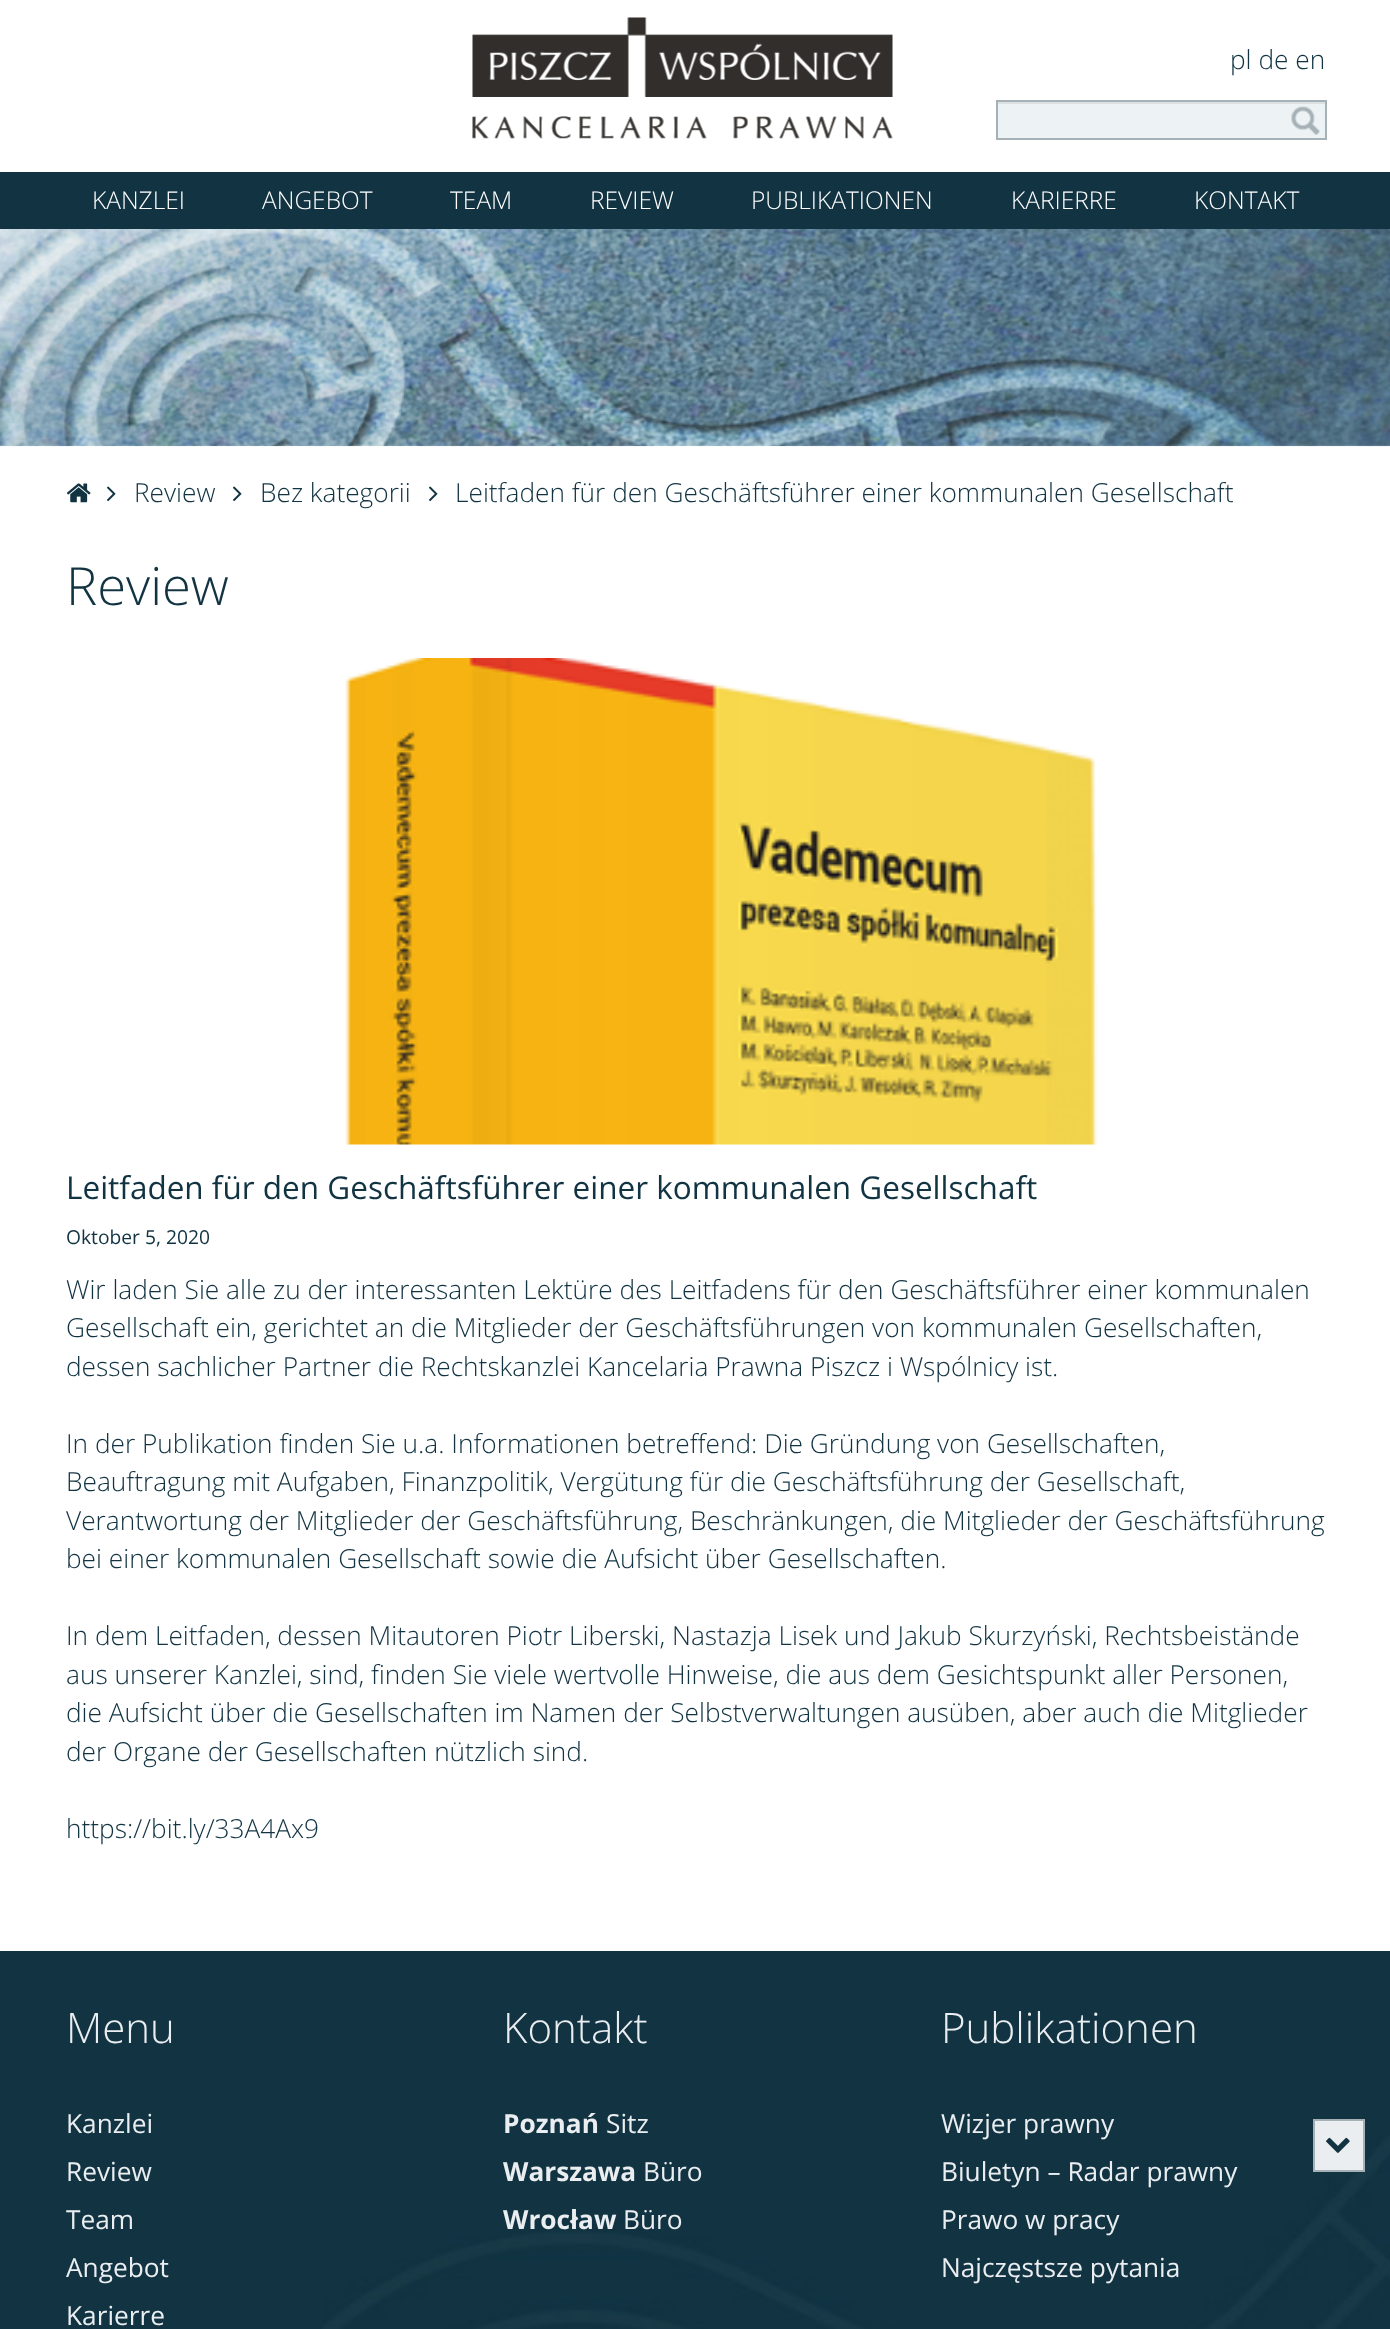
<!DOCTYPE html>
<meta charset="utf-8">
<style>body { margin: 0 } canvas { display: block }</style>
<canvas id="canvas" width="1390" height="2329"></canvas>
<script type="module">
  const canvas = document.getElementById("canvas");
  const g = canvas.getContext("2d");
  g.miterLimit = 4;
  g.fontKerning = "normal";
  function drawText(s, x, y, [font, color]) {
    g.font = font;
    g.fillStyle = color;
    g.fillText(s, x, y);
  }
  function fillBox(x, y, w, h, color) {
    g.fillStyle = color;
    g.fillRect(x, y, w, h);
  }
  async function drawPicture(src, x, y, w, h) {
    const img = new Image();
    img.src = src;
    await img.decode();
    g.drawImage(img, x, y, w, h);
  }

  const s1 = ["300 26.25px Open Sans", "#113342"];
  const s2 = ["300 24.5px Open Sans", "#FFFFFF"];
  const s3 = ["300 52.5px Open Sans", "#113342"];
  const s4 = ["31.5px Open Sans", "#113342"];
  const s5 = ["19.25px Open Sans", "#113342"];
  const s6 = ["300 42px Open Sans", "#EAEEF1"];
  const s7 = ["26.25px Open Sans", "#EAEEF1"];
  const s8 = ["bold 26.25px Open Sans", "#EAEEF1"];

  fillBox(0, 0, 1390, 2329, "#FFFFFF");
  await drawPicture("pic1.png", 472, 17, 421, 122);
  fillBox(0, 172, 1390, 57, "#113342");
  drawText("pl de en", 1230, 69, s1);
  fillBox(998, 104, 327, 34, "#EDF2F5");
  fillBox(998, 102, 327, 2, "#DBE0E3");
  g.strokeStyle = "#A5B1B6";
  g.lineWidth = 2;
  g.strokeRect(997, 101, 329, 38);
  await drawPicture("pic2.png", 1291, 106, 29, 29);
  drawText("KANZLEI", 92, 209, s2);
  drawText("ANGEBOT", 262, 209, s2);
  drawText("TEAM", 450, 209, s2);
  drawText("REVIEW", 590, 209, s2);
  drawText("PUBLIKATIONEN", 751, 209, s2);
  drawText("KARIERRE", 1011, 209, s2);
  drawText("KONTAKT", 1194, 209, s2);
  await drawPicture("pic3.png", 0, 229, 1390, 218);
  await drawPicture("pic4.png", 67, 483, 24, 20);
  await drawPicture("pic5.png", 107, 486, 9, 16);
  drawText("Review", 134, 502, s1);
  await drawPicture("pic5.png", 233, 486, 9, 16);
  drawText("Bez kategorii", 260, 502, s1);
  await drawPicture("pic5.png", 429, 486, 9, 16);
  drawText("Leitfaden für den Geschäftsführer einer kommunalen Gesellschaft", 455, 502, s1);
  drawText("Review", 66, 605, s3);
  await drawPicture("pic6.png", 345, 658, 753, 487);
  drawText("Leitfaden für den Geschäftsführer einer kommunalen Gesellschaft", 66, 1199, s4);
  drawText("Oktober 5, 2020", 66, 1244, s5);
  drawText("Wir laden Sie alle zu der interessanten Lektüre des Leitfadens für den Geschäftsführer einer kommunalen", 66, 1299, s1);
  drawText("Gesellschaft ein, gerichtet an die Mitglieder der Geschäftsführungen von kommunalen Gesellschaften,", 66, 1337, s1);
  drawText("dessen sachlicher Partner die Rechtskanzlei Kancelaria Prawna Piszcz i Wspólnicy ist.", 66, 1376, s1);
  drawText("In der Publikation finden Sie u.a. Informationen betreffend: Die Gründung von Gesellschaften,", 66, 1453, s1);
  drawText("Beauftragung mit Aufgaben, Finanzpolitik, Vergütung für die Geschäftsführung der Gesellschaft,", 66, 1491, s1);
  drawText("Verantwortung der Mitglieder der Geschäftsführung, Beschränkungen, die Mitglieder der Geschäftsführung", 66, 1530, s1);
  drawText("bei einer kommunalen Gesellschaft sowie die Aufsicht über Gesellschaften.", 66, 1568, s1);
  drawText("In dem Leitfaden, dessen Mitautoren Piotr Liberski, Nastazja Lisek und Jakub Skurzyński, Rechtsbeistände", 66, 1645, s1);
  drawText("aus unserer Kanzlei, sind, finden Sie viele wertvolle Hinweise, die aus dem Gesichtspunkt aller Personen,", 66, 1684, s1);
  drawText("die Aufsicht über die Gesellschaften im Namen der Selbstverwaltungen ausüben, aber auch die Mitglieder", 66, 1722, s1);
  drawText("der Organe der Gesellschaften nützlich sind.", 66, 1761, s1);
  drawText("https://bit.ly/33A4Ax9", 66, 1838, s1);
  fillBox(0, 1951, 1390, 378, "#113342");
  await drawPicture("pic7.png", 322, 2136, 1068, 193);
  drawText("Menu", 66, 2043, s6);
  drawText("Kanzlei", 66, 2133, s7);
  drawText("Review", 66, 2181, s7);
  drawText("Team", 66, 2229, s7);
  drawText("Angebot", 66, 2277, s7);
  drawText("Karierre", 66, 2325, s7);
  drawText("Kontakt", 503, 2043, s6);
  drawText("Poznań", 503, 2133, s8);
  drawText("Sitz", 606, 2133, s7);
  drawText("Warszawa", 503, 2181, s8);
  drawText("Büro", 643, 2181, s7);
  drawText("Wrocław", 503, 2229, s8);
  drawText("Büro", 623, 2229, s7);
  drawText("Publikationen", 941, 2043, s6);
  drawText("Wizjer prawny", 941, 2133, s7);
  drawText("Biuletyn – Radar prawny", 941, 2181, s7);
  drawText("Prawo w pracy", 941, 2229, s7);
  drawText("Najczęstsze pytania", 941, 2277, s7);
  g.beginPath();
  g.rect(1314, 2120, 50, 51);
  g.fill();
  g.stroke();
  await drawPicture("pic8.png", 1326, 2137, 24, 16);
</script>
